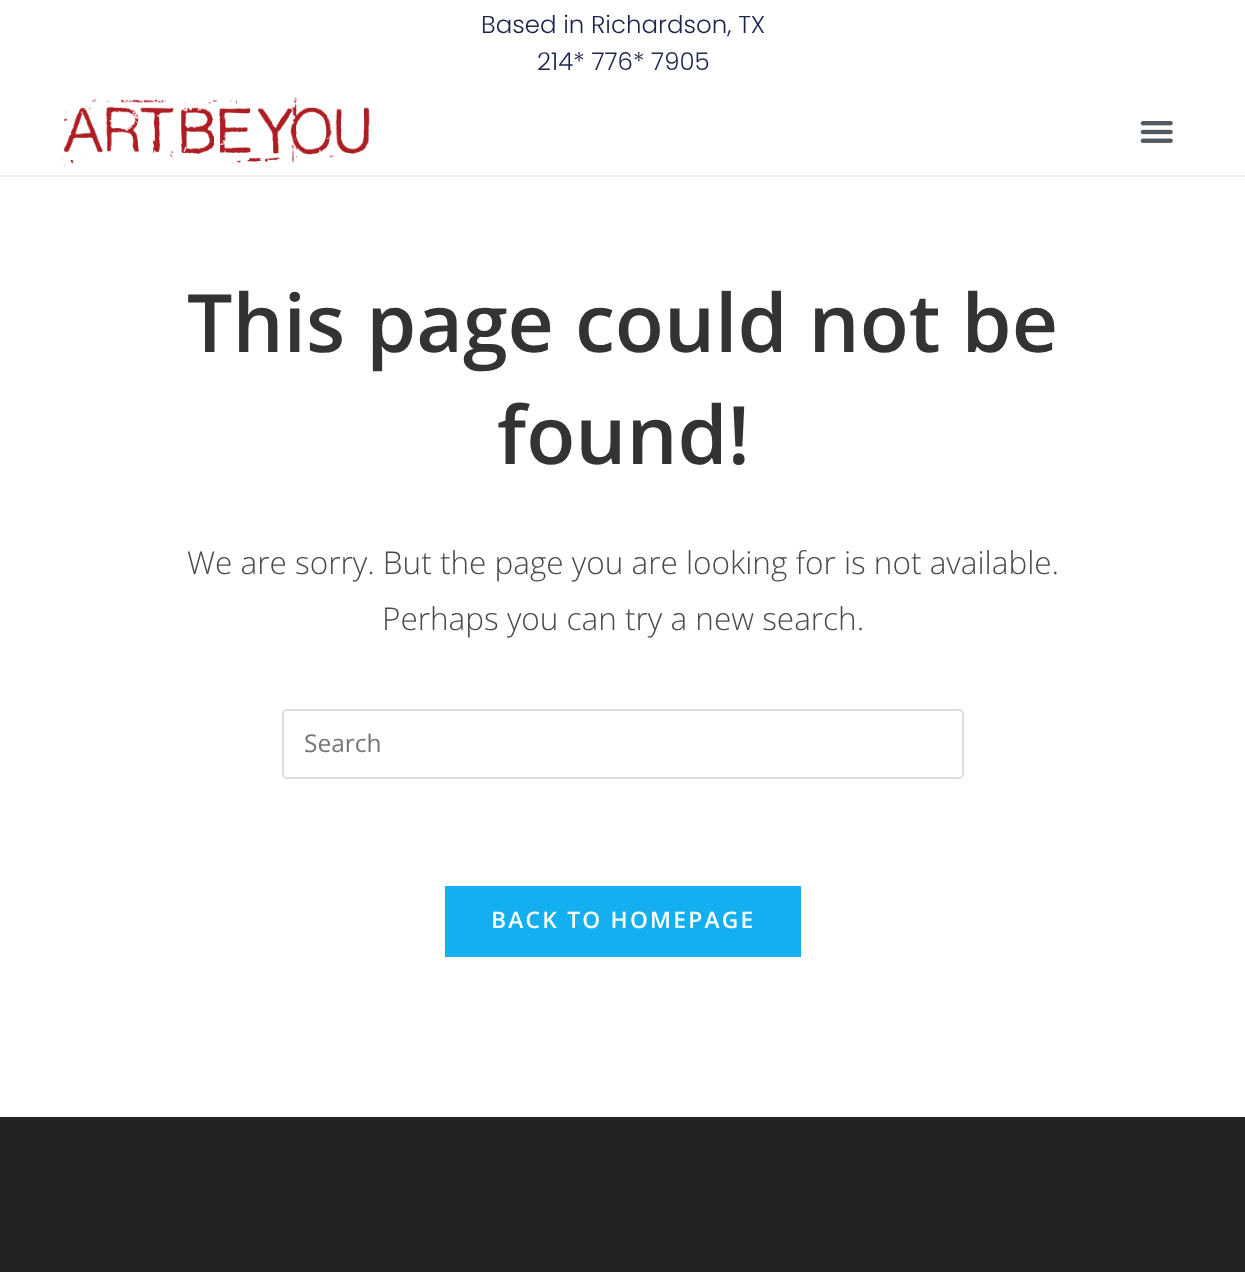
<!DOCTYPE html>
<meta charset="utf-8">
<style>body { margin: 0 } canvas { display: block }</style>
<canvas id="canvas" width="1245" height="1272"></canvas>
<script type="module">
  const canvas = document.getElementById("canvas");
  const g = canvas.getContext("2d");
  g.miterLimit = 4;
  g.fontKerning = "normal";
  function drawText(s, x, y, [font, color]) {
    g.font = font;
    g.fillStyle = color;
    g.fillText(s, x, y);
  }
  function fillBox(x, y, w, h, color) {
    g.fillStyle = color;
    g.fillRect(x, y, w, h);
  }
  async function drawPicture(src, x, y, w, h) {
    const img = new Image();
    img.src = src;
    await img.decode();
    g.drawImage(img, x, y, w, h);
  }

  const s1 = ["300 24.5px Poppins", "#1C244B"];
  const s2 = ["600 80.5px Open Sans", "#333333"];
  const s3 = ["300 31.5px Open Sans", "#4A4A4A"];
  const s4 = ["24.5px Open Sans", "#757575"];
  const s5 = ["600 22.75px Open Sans", "#FFFFFF"];

  fillBox(0, 0, 1245, 1272, "#FFFFFF");
  fillBox(0, 175, 1245, 2, "#F1F1F1");
  drawText("Based in Richardson, TX", 481, 33, s1);
  drawText("214* 776* 7905", 537, 70, s1);
  await drawPicture("pic1.png", 63, 98, 307, 69);
  await drawPicture("pic2.png", 1140, 121, 33, 22);
  drawText("This page could not be", 187, 352, s2);
  drawText("found!", 497, 464, s2);
  drawText("We are sorry. But the page you are looking for is not available.", 187, 574, s3);
  drawText("Perhaps you can try a new search.", 382, 630, s3);
  g.beginPath();
  g.roundRect(283, 710, 680, 68, 4);
  g.strokeStyle = "#DDDDDD";
  g.lineWidth = 2;
  g.stroke();
  drawText("Search", 304, 752, s4);
  fillBox(445, 886, 356, 71, "#13AFF0");
  g.letterSpacing = "2.25px";
  drawText("BACK TO HOMEPAGE", 491, 928, s5);
  fillBox(0, 1117, 1245, 155, "#222222");
</script>
